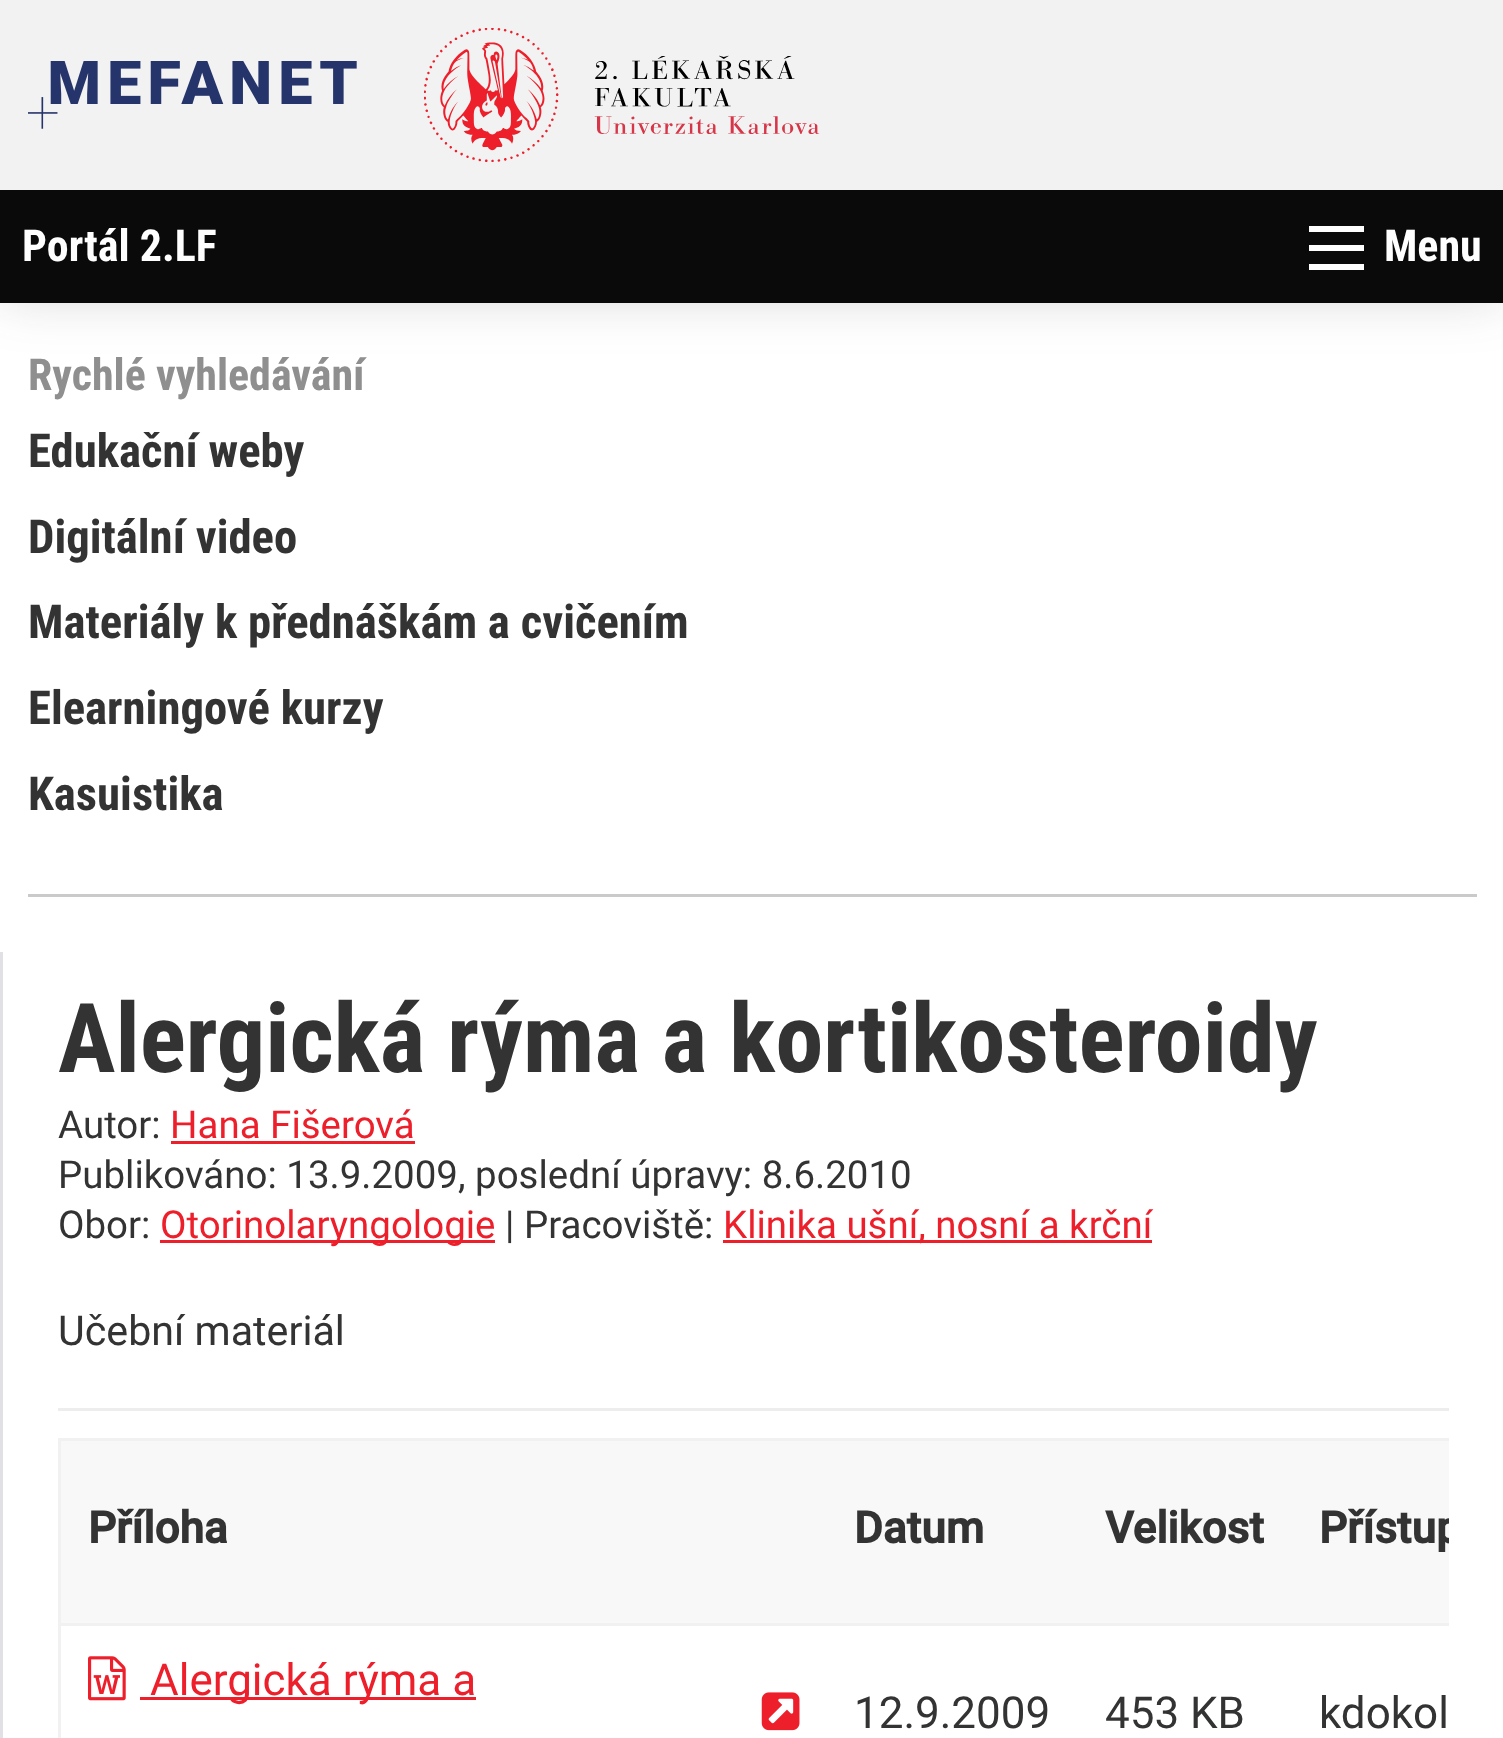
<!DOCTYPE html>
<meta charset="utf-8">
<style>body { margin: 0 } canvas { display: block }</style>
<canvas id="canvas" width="1503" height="1738"></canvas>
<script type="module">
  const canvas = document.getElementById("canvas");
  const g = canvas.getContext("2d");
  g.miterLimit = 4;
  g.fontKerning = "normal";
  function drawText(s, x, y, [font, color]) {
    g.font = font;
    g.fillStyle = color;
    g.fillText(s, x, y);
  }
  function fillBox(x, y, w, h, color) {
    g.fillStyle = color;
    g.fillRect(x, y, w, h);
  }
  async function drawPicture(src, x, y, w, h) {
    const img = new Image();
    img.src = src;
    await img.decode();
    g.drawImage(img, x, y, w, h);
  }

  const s1 = ["bold 44px Roboto Condensed", "#FEFEFE"];
  const s2 = ["bold 44px Roboto Condensed", "#8F8F8F"];
  const s3 = ["bold 46.75px Roboto Condensed", "#333333"];
  const s4 = ["bold 96.25px Roboto Condensed", "#333333"];
  const s5 = ["38.5px Roboto", "#333333"];
  const s6 = ["38.5px Roboto", "#EC1F2B"];
  const s7 = ["41.25px Roboto", "#333333"];
  const s8 = ["bold 44px Roboto", "#333333"];
  const s9 = ["44px Roboto", "#EC1F2B"];
  const s10 = ["44px Roboto", "#333333"];

  fillBox(0, 0, 1503, 1738, "#FFFFFF");
  g.fillStyle = "rgba(55, 53, 53, 0.2)";
  g.filter = "blur(27px)";
  g.beginPath();
  g.rect(0, -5, 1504, 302);
  g.fill();
  g.filter = "none";
  fillBox(0, 0, 1503, 190, "#F2F2F2");
  await drawPicture("pic1.png", 28, 61, 329, 68);
  await drawPicture("pic2.png", 424, 28, 396, 134);
  fillBox(0, 190, 1503, 113, "#0A0A0A");
  drawText("Portál 2.LF", 22, 261, s1);
  fillBox(1309, 264, 55, 6, "#FEFEFE");
  fillBox(1309, 245, 55, 6, "#FEFEFE");
  fillBox(1309, 226, 55, 6, "#FEFEFE");
  drawText("Menu", 1384, 261, s1);
  drawText("Rychlé vyhledávání", 28, 390, s2);
  drawText("Edukační weby", 28, 467, s3);
  drawText("Digitální video", 28, 553, s3);
  drawText("Materiály k přednáškám a cvičením", 28, 638, s3);
  drawText("Elearningové kurzy", 28, 724, s3);
  drawText("Kasuistika", 28, 810, s3);
  fillBox(28, 894, 1449, 3, "#CACACA");
  fillBox(0, 952, 3, 786, "#E1E1E5");
  drawText("Alergická rýma a kortikosteroidy", 58, 1072, s4);
  drawText("Autor:", 58, 1138, s5);
  drawText("Hana Fišerová", 170, 1138, s6);
  fillBox(171, 1141, 244, 3, "#EC1F2B");
  drawText("Publikováno: 13.9.2009, poslední úpravy: 8.6.2010", 58, 1188, s5);
  drawText("Obor:", 58, 1238, s5);
  fillBox(160, 1240, 335, 3, "#EC1F2B");
  drawText("Otorinolaryngologie", 160, 1238, s6);
  drawText("| Pracoviště:", 505, 1238, s5);
  fillBox(723, 1240, 429, 3, "#EC1F2B");
  drawText("Klinika ušní, nosní a krční", 723, 1238, s6);
  fillBox(58, 1408, 1391, 3, "#EDEDED");
  drawText("Učební materiál", 58, 1345, s7);
  fillBox(61, 1441, 1388, 182, "#F8F8F8");
  fillBox(58, 1438, 1391, 3, "#F1F1F1");
  fillBox(58, 1623, 1391, 3, "#F1F1F1");
  fillBox(58, 1623, 3, 115, "#F1F1F1");
  fillBox(58, 1438, 3, 187, "#F1F1F1");
  drawText("Příloha", 88, 1543, s8);
  drawText("Datum", 854, 1543, s8);
  drawText("Velikost", 1105, 1543, s8);
  g.save();
  g.beginPath();
  g.rect(58, 1438, 1391, 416);
  g.clip();
  drawText("Přístup", 1319, 1543, s8);
  g.restore();
  await drawPicture("pic3.png", 88, 1656, 38, 45);
  fillBox(140, 1697, 336, 3, "#EC1F2B");
  drawText("Alergická rýma a", 150, 1695, s9);
  await drawPicture("pic4.png", 761, 1692, 39, 39);
  drawText("12.9.2009", 854, 1728, s10);
  drawText("453 KB", 1105, 1728, s10);
  drawText("kdokol", 1319, 1728, s10);
</script>
